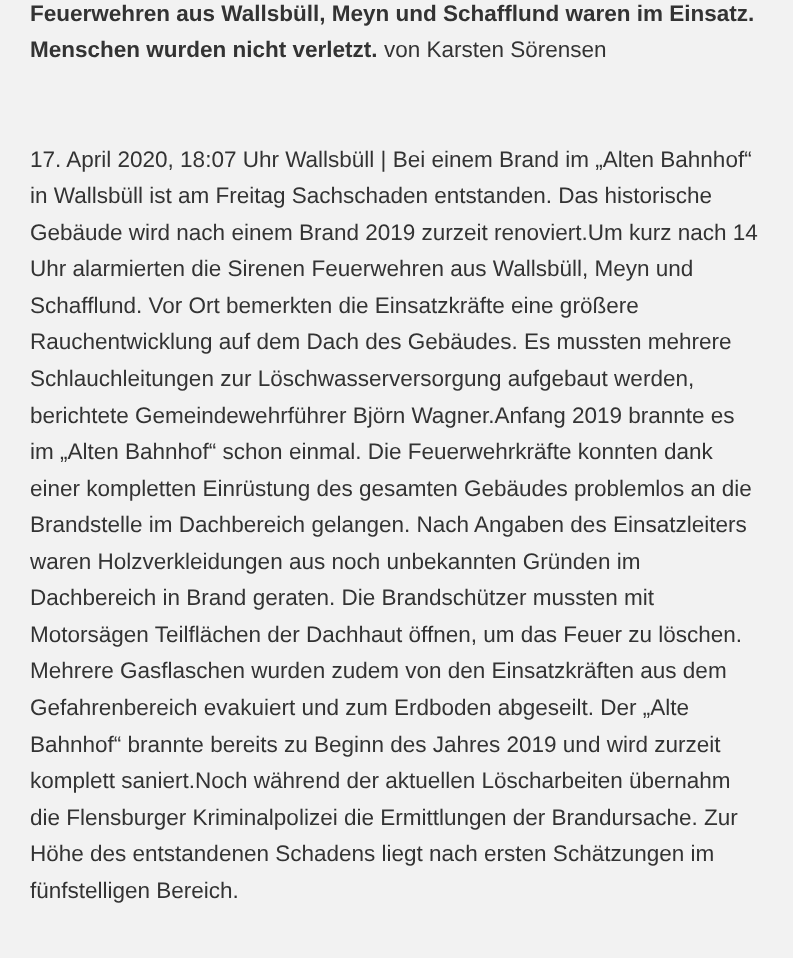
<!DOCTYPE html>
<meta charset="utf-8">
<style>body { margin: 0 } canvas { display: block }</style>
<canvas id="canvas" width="793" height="958"></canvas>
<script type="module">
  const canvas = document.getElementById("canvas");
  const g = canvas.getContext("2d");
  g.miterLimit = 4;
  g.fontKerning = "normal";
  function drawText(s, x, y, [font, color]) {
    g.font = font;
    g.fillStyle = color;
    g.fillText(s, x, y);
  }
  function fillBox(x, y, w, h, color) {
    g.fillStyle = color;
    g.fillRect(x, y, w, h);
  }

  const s1 = ["bold 22.5px Liberation Sans", "#333333"];
  const s2 = ["22.5px Liberation Sans", "#333333"];

  fillBox(0, 0, 793, 958, "#F2F2F2");
  drawText("Feuerwehren aus Wallsbüll, Meyn und Schafflund waren im Einsatz.", 30, 21, s1);
  drawText("Menschen wurden nicht verletzt.", 30, 57, s1);
  drawText("von Karsten Sörensen", 384, 57, s2);
  drawText("17. April 2020, 18:07 Uhr Wallsbüll | Bei einem Brand im „Alten Bahnhof“", 30, 167, s2);
  drawText("in Wallsbüll ist am Freitag Sachschaden entstanden. Das historische", 30, 203, s2);
  drawText("Gebäude wird nach einem Brand 2019 zurzeit renoviert.Um kurz nach 14", 30, 240, s2);
  drawText("Uhr alarmierten die Sirenen Feuerwehren aus Wallsbüll, Meyn und", 30, 276, s2);
  drawText("Schafflund. Vor Ort bemerkten die Einsatzkräfte eine größere", 30, 313, s2);
  drawText("Rauchentwicklung auf dem Dach des Gebäudes. Es mussten mehrere", 30, 349, s2);
  drawText("Schlauchleitungen zur Löschwasserversorgung aufgebaut werden,", 30, 386, s2);
  drawText("berichtete Gemeindewehrführer Björn Wagner.Anfang 2019 brannte es", 30, 423, s2);
  drawText("im „Alten Bahnhof“ schon einmal. Die Feuerwehrkräfte konnten dank", 30, 459, s2);
  drawText("einer kompletten Einrüstung des gesamten Gebäudes problemlos an die", 30, 496, s2);
  drawText("Brandstelle im Dachbereich gelangen. Nach Angaben des Einsatzleiters", 30, 532, s2);
  drawText("waren Holzverkleidungen aus noch unbekannten Gründen im", 30, 569, s2);
  drawText("Dachbereich in Brand geraten. Die Brandschützer mussten mit", 30, 605, s2);
  drawText("Motorsägen Teilflächen der Dachhaut öffnen, um das Feuer zu löschen.", 30, 642, s2);
  drawText("Mehrere Gasflaschen wurden zudem von den Einsatzkräften aus dem", 30, 678, s2);
  drawText("Gefahrenbereich evakuiert und zum Erdboden abgeseilt. Der „Alte", 30, 715, s2);
  drawText("Bahnhof“ brannte bereits zu Beginn des Jahres 2019 und wird zurzeit", 30, 752, s2);
  drawText("komplett saniert.Noch während der aktuellen Löscharbeiten übernahm", 30, 788, s2);
  drawText("die Flensburger Kriminalpolizei die Ermittlungen der Brandursache. Zur", 30, 825, s2);
  drawText("Höhe des entstandenen Schadens liegt nach ersten Schätzungen im", 30, 861, s2);
  drawText("fünfstelligen Bereich.", 30, 898, s2);
</script>
